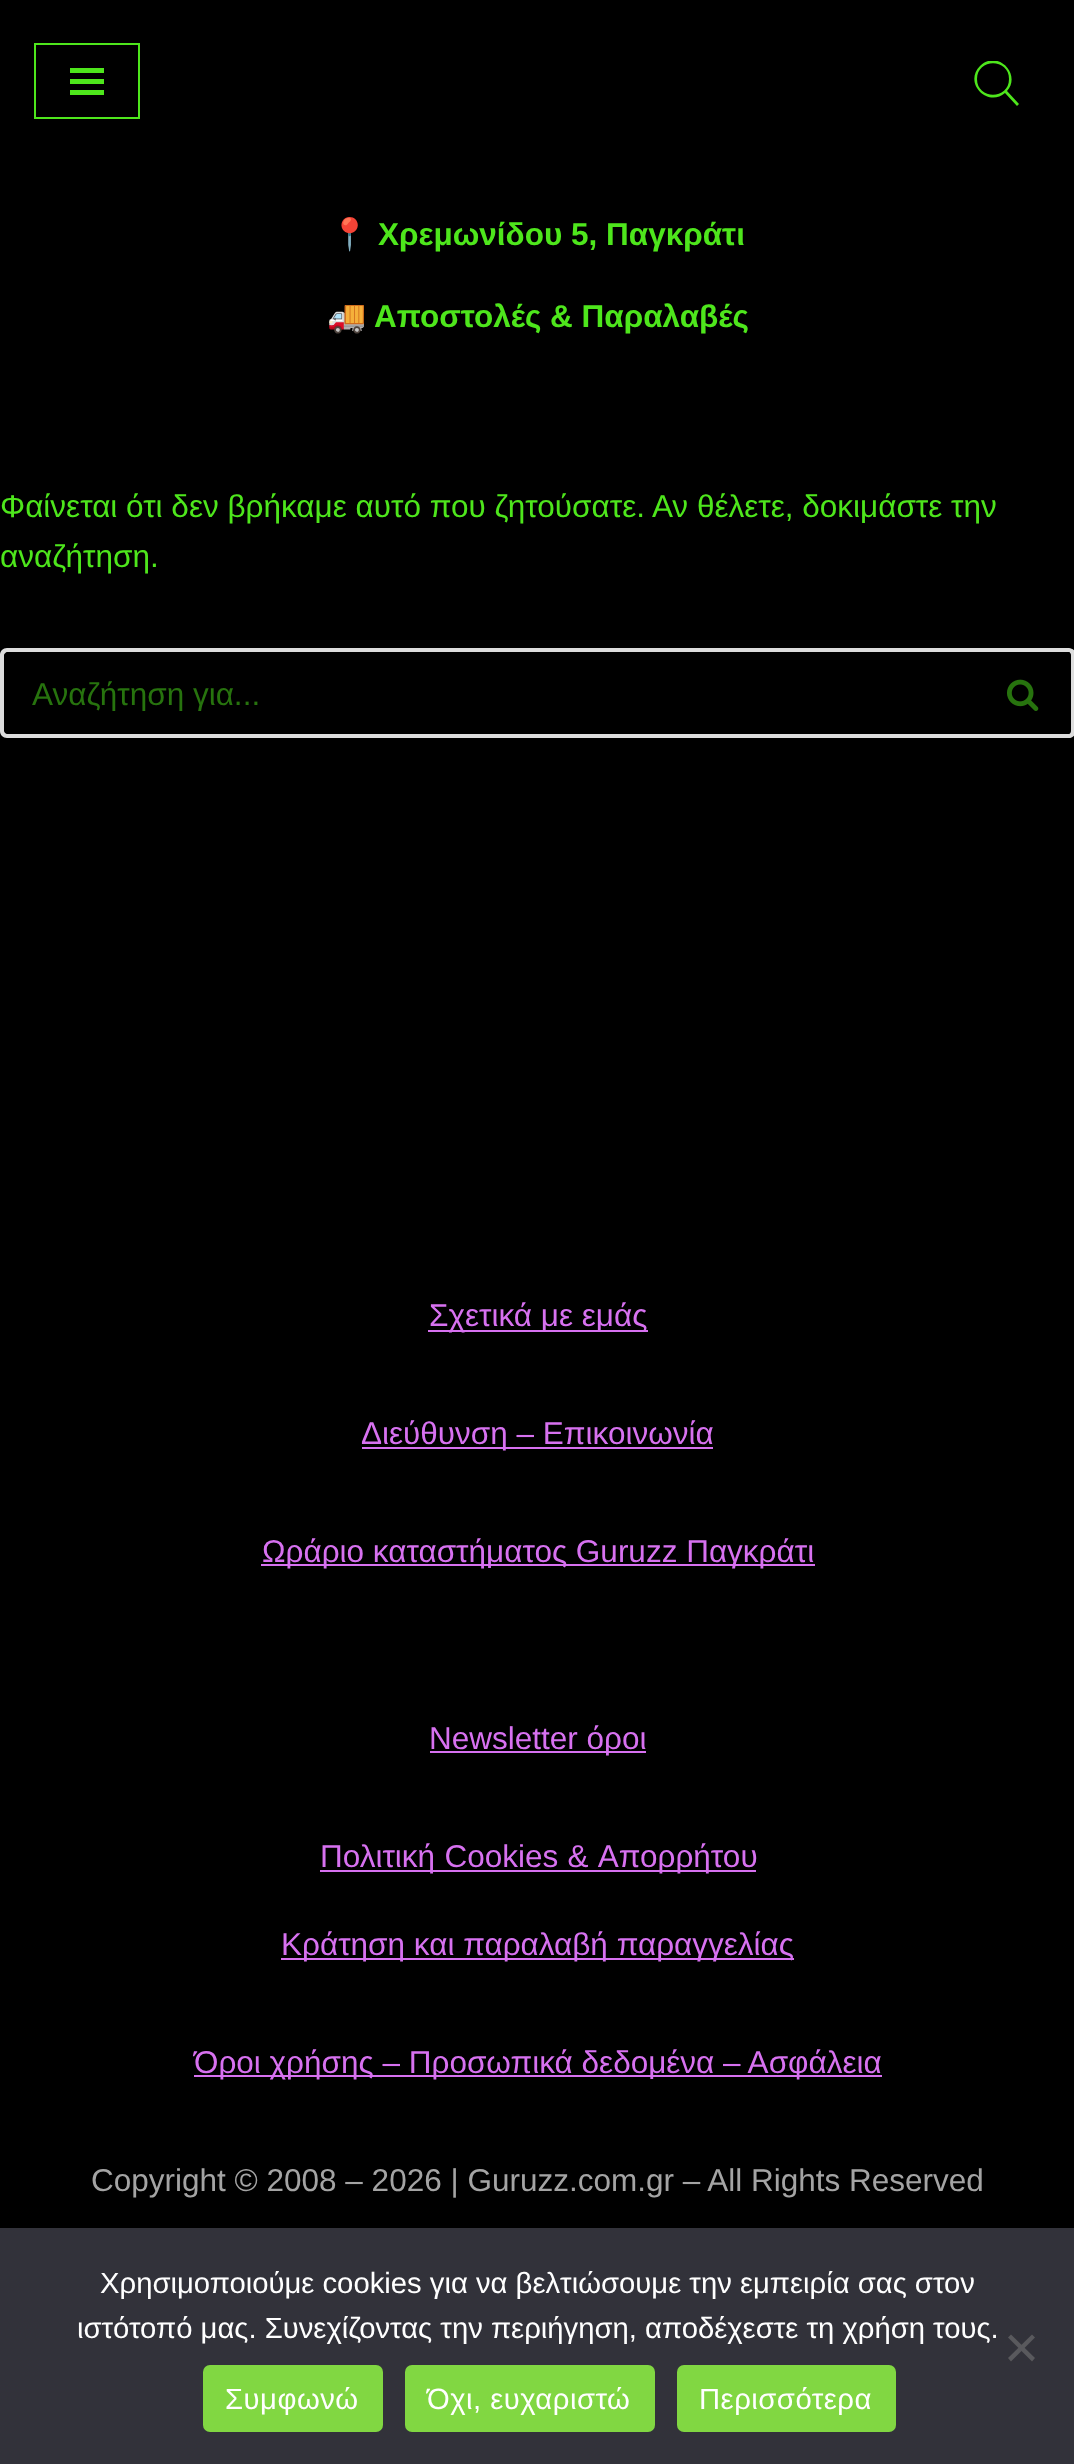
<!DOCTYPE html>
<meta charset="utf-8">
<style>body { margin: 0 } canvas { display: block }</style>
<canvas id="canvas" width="1074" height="2464"></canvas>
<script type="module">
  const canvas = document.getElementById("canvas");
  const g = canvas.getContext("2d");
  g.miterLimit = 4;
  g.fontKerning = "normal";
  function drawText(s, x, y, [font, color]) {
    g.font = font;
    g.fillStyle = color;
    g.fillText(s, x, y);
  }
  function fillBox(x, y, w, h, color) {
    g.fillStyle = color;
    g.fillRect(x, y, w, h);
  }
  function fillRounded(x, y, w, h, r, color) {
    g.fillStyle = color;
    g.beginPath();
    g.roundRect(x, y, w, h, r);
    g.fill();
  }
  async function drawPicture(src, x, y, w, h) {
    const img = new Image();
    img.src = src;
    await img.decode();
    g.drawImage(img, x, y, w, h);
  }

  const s1 = ["bold 31.5px Noto Color Emoji", "#4EE61C"];
  const s2 = ["bold 31.5px Liberation Sans", "#4EE61C"];
  const s3 = ["31.5px Liberation Sans", "#4EE61C"];
  const s4 = ["31.5px Liberation Sans", "#27730E"];
  const s5 = ["31.5px Liberation Sans", "#D771F0"];
  const s6 = ["31.5px Liberation Sans", "#A4A4A4"];
  const s7 = ["29.25px Liberation Sans", "#FFFFFF"];

  fillBox(0, 0, 1074, 2464, "#000000");
  g.strokeStyle = "#4EE61C";
  g.lineWidth = 2;
  g.strokeRect(35, 44, 104, 74);
  fillBox(70, 68, 34, 5, "#4EE61C");
  fillBox(70, 79, 34, 5, "#4EE61C");
  fillBox(70, 90, 34, 5, "#4EE61C");
  g.save();
  g.beginPath();
  g.rect(974, 61, 45, 45);
  g.clip();
  g.beginPath();
  g.moveTo(1019, 104);
  g.lineTo(1007, 91);
  g.bezierCurveTo(1022, 74, 997, 49, 980, 66);
  g.bezierCurveTo(963, 83, 988, 108, 1005, 93);
  g.lineTo(1017, 106);
  g.closePath();
  g.moveTo(977, 79);
  g.bezierCurveTo(977, 58, 1009, 58, 1009, 79);
  g.bezierCurveTo(1009, 100, 977, 100, 977, 79);
  g.closePath();
  g.fill();
  g.restore();
  drawText("📍", 330, 245, s1);
  drawText("Χρεμωνίδου 5, Παγκράτι", 378, 245, s2);
  drawText("🚚", 327, 327, s1);
  drawText("Αποστολές & Παραλαβές", 374, 327, s2);
  drawText("Φαίνεται ότι δεν βρήκαμε αυτό που ζητούσατε. Αν θέλετε, δοκιμάστε την", 0, 517, s3);
  drawText("αναζήτηση.", 0, 567, s3);
  g.fillStyle = "#DDDDDD";
  g.beginPath();
  g.moveTo(7, 648);
  g.lineTo(974, 648);
  g.lineTo(974, 738);
  g.lineTo(7, 738);
  g.bezierCurveTo(3, 738, 0, 735, 0, 731);
  g.lineTo(0, 655);
  g.bezierCurveTo(0, 651, 3, 648, 7, 648);
  g.closePath();
  g.moveTo(7, 652);
  g.lineTo(974, 652);
  g.lineTo(974, 734);
  g.lineTo(7, 734);
  g.bezierCurveTo(6, 734, 4, 732, 4, 731);
  g.lineTo(4, 655);
  g.bezierCurveTo(4, 654, 6, 652, 7, 652);
  g.closePath();
  g.fill("evenodd");
  g.save();
  g.beginPath();
  g.rect(32, 675, 884, 36);
  g.clip();
  drawText("Αναζήτηση για...", 32, 705, s4);
  g.restore();
  g.beginPath();
  g.moveTo(974, 648);
  g.lineTo(1069, 648);
  g.bezierCurveTo(1072, 648, 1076, 651, 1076, 655);
  g.lineTo(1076, 731);
  g.bezierCurveTo(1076, 735, 1072, 738, 1069, 738);
  g.lineTo(974, 738);
  g.closePath();
  g.moveTo(974, 652);
  g.lineTo(1069, 652);
  g.bezierCurveTo(1070, 652, 1071, 654, 1071, 655);
  g.lineTo(1071, 731);
  g.bezierCurveTo(1071, 732, 1070, 734, 1069, 734);
  g.lineTo(974, 734);
  g.closePath();
  g.fill("evenodd");
  await drawPicture("pic1.png", 1007, 679, 32, 32);
  fillBox(428, 1330, 220, 2, "#D771F0");
  drawText("Σχετικά με εμάς", 429, 1326, s5);
  fillBox(362, 1447, 351, 2, "#D771F0");
  drawText("Διεύθυνση – Επικοινωνία", 361, 1444, s5);
  fillBox(261, 1564, 554, 2, "#D771F0");
  drawText("Ωράριο καταστήματος Guruzz Παγκράτι", 262, 1562, s5);
  fillBox(430, 1751, 216, 2, "#D771F0");
  drawText("Newsletter όροι", 429, 1749, s5);
  fillBox(320, 1870, 436, 2, "#D771F0");
  g.wordSpacing = "0.5px";
  drawText("Πολιτική Cookies & Απορρήτου", 320, 1867, s5);
  fillBox(281, 1958, 513, 2, "#D771F0");
  g.wordSpacing = "0px";
  drawText("Κράτηση και παραλαβή παραγγελίας", 281, 1955, s5);
  fillBox(194, 2075, 688, 2, "#D771F0");
  drawText("Όροι χρήσης – Προσωπικά δεδομένα – Ασφάλεια", 194, 2073, s5);
  drawText("Copyright © 2008 – 2026 | Guruzz.com.gr – All Rights Reserved", 91, 2191, s6);
  fillBox(0, 2228, 1074, 236, "#32323A");
  drawText("Χρησιμοποιούμε cookies για να βελτιώσουμε την εμπειρία σας στον", 100, 2293, s7);
  drawText("ιστότοπό μας. Συνεχίζοντας την περιήγηση, αποδέχεστε τη χρήση τους.", 77, 2338, s7);
  g.fillStyle = "#59595D";
  g.beginPath();
  g.moveTo(1032, 2334.5);
  g.lineTo(1035, 2337.5);
  g.lineTo(1011, 2361.5);
  g.lineTo(1008, 2358);
  g.closePath();
  g.fill();
  g.beginPath();
  g.moveTo(1008, 2337.5);
  g.lineTo(1011, 2334.5);
  g.lineTo(1035, 2358);
  g.lineTo(1032, 2361.5);
  g.closePath();
  g.fill();
  fillRounded(203, 2365, 180, 67, 7, "#81D742");
  g.letterSpacing = "0.5px";
  drawText("Συμφωνώ", 225, 2409, s7);
  fillRounded(405, 2365, 250, 67, 7, "#81D742");
  drawText("Όχι, ευχαριστώ", 427, 2409, s7);
  fillRounded(677, 2365, 219, 67, 7, "#81D742");
  drawText("Περισσότερα", 699, 2409, s7);
</script>
